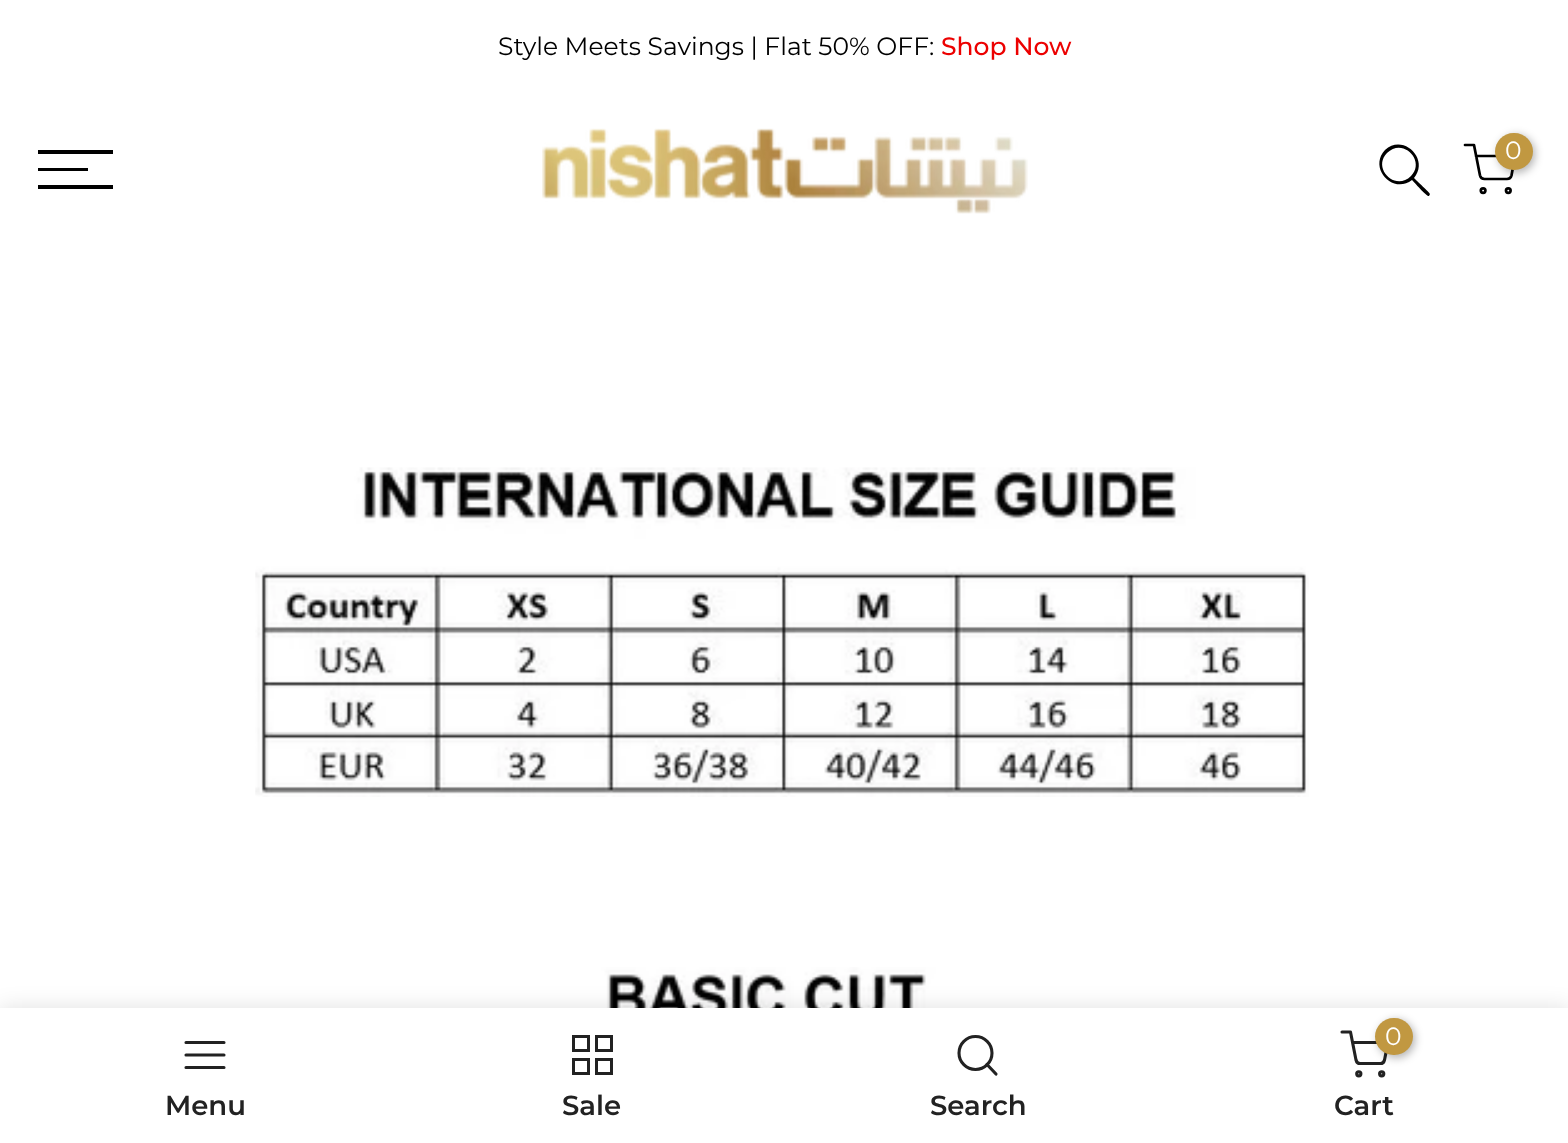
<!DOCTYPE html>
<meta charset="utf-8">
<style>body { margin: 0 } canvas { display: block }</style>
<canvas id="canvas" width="1568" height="1143"></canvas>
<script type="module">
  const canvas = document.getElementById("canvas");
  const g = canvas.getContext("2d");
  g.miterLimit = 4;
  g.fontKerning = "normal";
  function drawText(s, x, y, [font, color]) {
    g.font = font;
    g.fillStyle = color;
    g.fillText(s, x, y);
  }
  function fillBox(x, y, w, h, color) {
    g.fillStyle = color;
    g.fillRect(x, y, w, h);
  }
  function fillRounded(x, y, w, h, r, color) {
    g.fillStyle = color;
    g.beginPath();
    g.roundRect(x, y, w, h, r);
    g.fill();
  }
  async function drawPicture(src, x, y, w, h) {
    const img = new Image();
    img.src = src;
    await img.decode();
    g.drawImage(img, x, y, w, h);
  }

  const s1 = ["25px Montserrat", "#000000"];
  const s2 = ["500 25px Montserrat", "#EC0101"];
  const s3 = ["25px Montserrat", "#FFFFFF"];
  const s4 = ["600 27.5px Montserrat", "#222222"];

  fillBox(0, 0, 1568, 1143, "#FFFFFF");
  drawText("Style Meets Savings | Flat 50% OFF:", 498, 55, s1);
  drawText("Shop Now", 941, 55, s2);
  fillBox(38, 150, 75, 4, "#000000");
  fillBox(38, 168, 50, 3, "#000000");
  fillBox(38, 185, 75, 4, "#000000");
  await drawPicture("pic1.png", 542, 128, 486, 86);
  g.beginPath();
  g.moveTo(1411, 176);
  g.bezierCurveTo(1395, 192, 1372, 168, 1387, 153);
  g.bezierCurveTo(1403, 137, 1426, 161, 1411, 176);
  g.closePath();
  g.moveTo(1412, 180);
  g.bezierCurveTo(1393, 195, 1368, 168, 1385, 150);
  g.bezierCurveTo(1403, 133, 1430, 159, 1414, 178);
  g.bezierCurveTo(1416, 180, 1430, 193, 1430, 194);
  g.lineTo(1429, 196);
  g.bezierCurveTo(1427, 197, 1414, 182, 1412, 180);
  g.closePath();
  g.fill("evenodd");
  g.beginPath();
  g.moveTo(1465, 145);
  g.lineTo(1474, 145);
  g.lineTo(1480, 175.5);
  g.bezierCurveTo(1480.5, 177.5, 1482.5, 179, 1484.5, 179);
  g.lineTo(1507, 179);
  g.bezierCurveTo(1509, 179, 1511, 177.5, 1511.5, 175.5);
  g.lineTo(1515, 156);
  g.lineTo(1476, 156);
  g.strokeStyle = "#000000";
  g.lineWidth = 2.7;
  g.lineCap = "round";
  g.lineJoin = "round";
  g.stroke();
  g.fillStyle = "rgba(0, 0, 0, 0.3)";
  g.filter = "blur(4px)";
  g.beginPath();
  g.roundRect(1498, 135, 37, 38, 18.5);
  g.fill();
  g.filter = "none";
  fillRounded(1495, 133, 38, 37, 18.5, "#C19841");
  drawText("0", 1505, 159, s3);
  g.beginPath();
  g.arc(1483.1, 190.6, 2.3, 0, Math.PI * 2);
  g.stroke();
  g.beginPath();
  g.arc(1508.3, 190.6, 2.3, 0, Math.PI * 2);
  g.stroke();
  await drawPicture("pic2.png", 255, 467, 1054, 330);
  await drawPicture("pic3.png", 224, 967, 1106, 41);
  g.fillStyle = "rgba(0, 0, 0, 0.12)";
  g.filter = "blur(11px)";
  g.beginPath();
  g.rect(0, 1008, 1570, 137);
  g.fill();
  g.filter = "none";
  fillBox(0, 1008, 1568, 135, "#FFFFFF");
  g.beginPath();
  g.moveTo(186, 1055);
  g.lineTo(224, 1055);
  g.moveTo(186, 1042.5);
  g.lineTo(224, 1042.5);
  g.moveTo(186, 1067.5);
  g.lineTo(224, 1067.5);
  g.strokeStyle = "#222222";
  g.lineWidth = 3.1;
  g.stroke();
  drawText("Menu", 165, 1115, s4);
  g.lineWidth = 3;
  g.lineJoin = "miter";
  g.strokeRect(573.5, 1036.5, 15, 14);
  g.strokeRect(596.5, 1036.5, 15, 14);
  g.strokeRect(573.5, 1059.5, 15, 14);
  g.strokeRect(596.5, 1059.5, 15, 14);
  drawText("Sale", 562, 1115, s4);
  g.beginPath();
  g.arc(975.5, 1053, 16.5, 0, Math.PI * 2);
  g.lineWidth = 3.1;
  g.stroke();
  g.beginPath();
  g.moveTo(996, 1074);
  g.lineTo(987, 1064.5);
  g.lineJoin = "round";
  g.stroke();
  drawText("Search", 930, 1115, s4);
  g.beginPath();
  g.moveTo(1342, 1032);
  g.lineTo(1350.5, 1032);
  g.lineTo(1356, 1060);
  g.bezierCurveTo(1356.5, 1062, 1358, 1063.5, 1360, 1063.5);
  g.lineTo(1380.5, 1063.5);
  g.bezierCurveTo(1382.5, 1063.5, 1384, 1062, 1384.5, 1060);
  g.lineTo(1388, 1042.5);
  g.lineTo(1352.5, 1042.5);
  g.stroke();
  g.beginPath();
  g.arc(1381.7, 1073.8, 2.1, 0, Math.PI * 2);
  g.stroke();
  g.fillStyle = "rgba(0, 0, 0, 0.3)";
  g.filter = "blur(4px)";
  g.beginPath();
  g.roundRect(1378, 1020, 37, 38, 18.5);
  g.fill();
  g.filter = "none";
  fillRounded(1375, 1018, 38, 37, 18.5, "#C19841");
  drawText("0", 1385, 1045, s3);
  g.beginPath();
  g.arc(1358.8, 1073.8, 2.1, 0, Math.PI * 2);
  g.stroke();
  drawText("Cart", 1334, 1115, s4);
</script>
